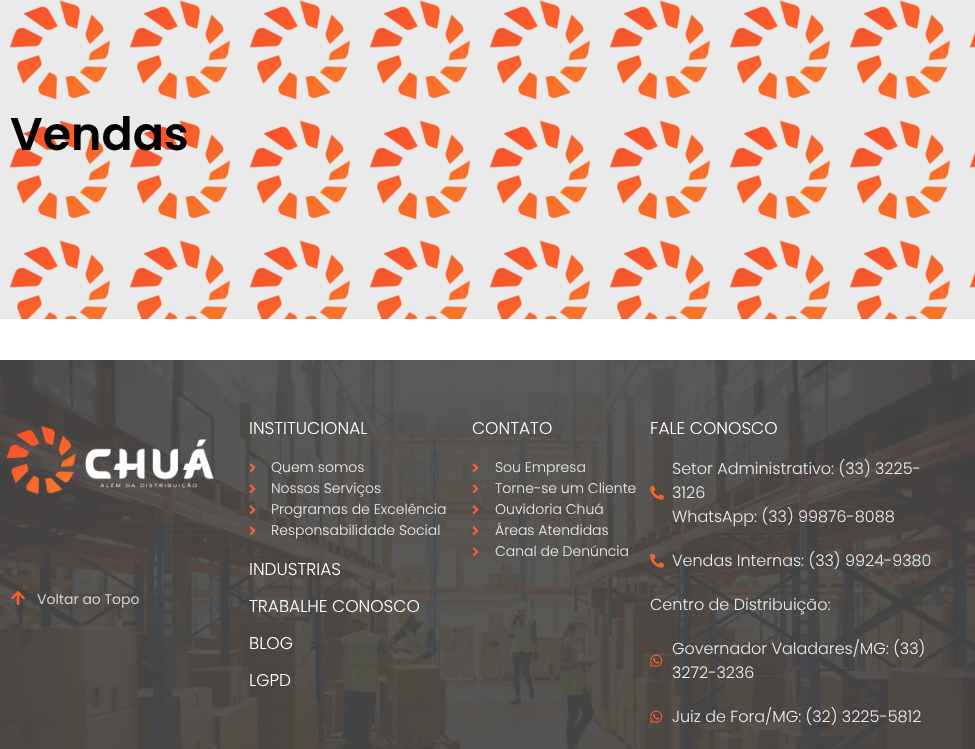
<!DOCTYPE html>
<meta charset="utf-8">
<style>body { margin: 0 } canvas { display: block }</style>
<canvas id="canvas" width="975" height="749"></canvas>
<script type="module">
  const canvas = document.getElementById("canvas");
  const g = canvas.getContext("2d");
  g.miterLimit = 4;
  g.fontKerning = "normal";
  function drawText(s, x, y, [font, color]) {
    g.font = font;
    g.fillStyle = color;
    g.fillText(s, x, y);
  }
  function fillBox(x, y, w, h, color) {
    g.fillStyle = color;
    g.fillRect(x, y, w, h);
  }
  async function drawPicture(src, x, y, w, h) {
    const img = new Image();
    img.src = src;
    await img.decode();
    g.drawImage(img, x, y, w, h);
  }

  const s1 = ["600 46px Poppins", "#000000"];
  const s2 = ["14px Poppins", "#D1D1D1"];
  const s3 = ["300 17px Poppins", "#FFFFFF"];
  const s4 = ["300 14px Poppins", "#E9E9E9"];
  const s5 = ["300 16px Poppins", "#E9E9E9"];

  fillBox(0, 0, 975, 749, "#FFFFFF");
  fillBox(0, 0, 975, 319, "#EAEAEA");
  await drawPicture("pic1.png", 9, 0, 966, 319);
  drawText("Vendas", 10, 150, s1);
  await drawPicture("pic2.png", 0, 360, 975, 389);
  await drawPicture("pic3.png", 6, 426, 208, 69);
  await drawPicture("pic4.png", 11, 591, 14, 14);
  drawText("Voltar ao Topo", 37, 604, s2);
  drawText("INSTITUCIONAL", 249, 434, s3);
  await drawPicture("pic5.png", 249, 463, 7, 10);
  drawText("Quem somos", 271, 472, s4);
  await drawPicture("pic6.png", 249, 484, 7, 10);
  drawText("Nossos Serviços", 271, 493, s4);
  await drawPicture("pic7.png", 249, 505, 7, 10);
  drawText("Programas de Excelência", 271, 514, s4);
  await drawPicture("pic8.png", 249, 526, 7, 10);
  drawText("Responsabilidade Social", 271, 535, s4);
  drawText("INDUSTRIAS", 249, 575, s3);
  drawText("TRABALHE CONOSCO", 249, 612, s3);
  drawText("BLOG", 249, 649, s3);
  drawText("LGPD", 249, 686, s3);
  drawText("CONTATO", 472, 434, s3);
  await drawPicture("pic9.png", 472, 463, 7, 10);
  drawText("Sou Empresa", 495, 472, s4);
  await drawPicture("pic10.png", 472, 484, 7, 10);
  drawText("Torne-se um Cliente", 495, 493, s4);
  await drawPicture("pic11.png", 472, 505, 7, 10);
  drawText("Ouvidoria Chuá", 495, 514, s4);
  await drawPicture("pic12.png", 472, 526, 7, 10);
  drawText("Áreas Atendidas", 495, 535, s4);
  await drawPicture("pic13.png", 472, 547, 7, 10);
  drawText("Canal de Denúncia", 495, 556, s4);
  drawText("FALE CONOSCO", 650, 434, s3);
  await drawPicture("pic14.png", 650, 485, 14, 15);
  drawText("Setor Administrativo: (33) 3225-", 672, 474, s5);
  drawText("3126", 672, 498, s5);
  drawText("WhatsApp: (33) 99876-8088", 672, 522, s5);
  await drawPicture("pic15.png", 650, 553, 14, 15);
  drawText("Vendas Internas: (33) 9924-9380", 672, 566, s5);
  drawText("Centro de Distribuição:", 650, 610, s5);
  await drawPicture("pic16.png", 650, 654, 13, 13);
  drawText("Governador Valadares/MG: (33)", 672, 654, s5);
  drawText("3272-3236", 672, 678, s5);
  await drawPicture("pic17.png", 650, 710, 13, 13);
  drawText("Juiz de Fora/MG: (32) 3225-5812", 672, 722, s5);
</script>
